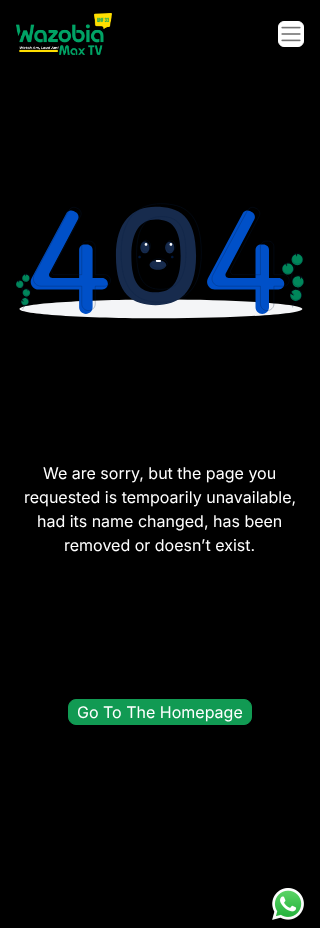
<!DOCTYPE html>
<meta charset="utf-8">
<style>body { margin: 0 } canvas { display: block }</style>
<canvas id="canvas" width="320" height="928"></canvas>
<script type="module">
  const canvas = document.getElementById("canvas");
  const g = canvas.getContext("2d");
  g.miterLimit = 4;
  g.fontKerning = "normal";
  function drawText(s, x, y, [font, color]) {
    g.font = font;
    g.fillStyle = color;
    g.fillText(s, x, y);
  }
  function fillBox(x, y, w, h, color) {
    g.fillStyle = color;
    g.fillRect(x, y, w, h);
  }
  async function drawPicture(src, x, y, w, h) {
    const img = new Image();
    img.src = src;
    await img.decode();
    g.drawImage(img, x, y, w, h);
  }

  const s1 = ["16px Inter", "#FFFFFF"];

  fillBox(0, 0, 320, 928, "#000000");
  await drawPicture("pic1.png", 16, 13, 96, 42);
  g.fillStyle = "#FFFFFF";
  g.beginPath();
  g.roundRect(278.5, 21.5, 25, 25, 5.5);
  g.fill();
  g.strokeStyle = "#FFFFFF";
  g.stroke();
  await drawPicture("pic2.png", 281, 26, 20, 16);
  await drawPicture("pic3.png", 16, 203, 288, 116);
  drawText("We are sorry, but the page you", 43, 479, s1);
  drawText("requested is tempoarily unavailable,", 24, 503, s1);
  drawText("had its name changed, has been", 37, 527, s1);
  drawText("removed or doesn’t exist.", 64, 551, s1);
  g.fillStyle = "#119A53";
  g.beginPath();
  g.roundRect(68.5, 699.5, 183, 25, 7.5);
  g.fill();
  g.strokeStyle = "#119A53";
  g.stroke();
  drawText("Go To The Homepage", 77, 718, s1);
  await drawPicture("pic4.png", 272, 888, 32, 32);
</script>
